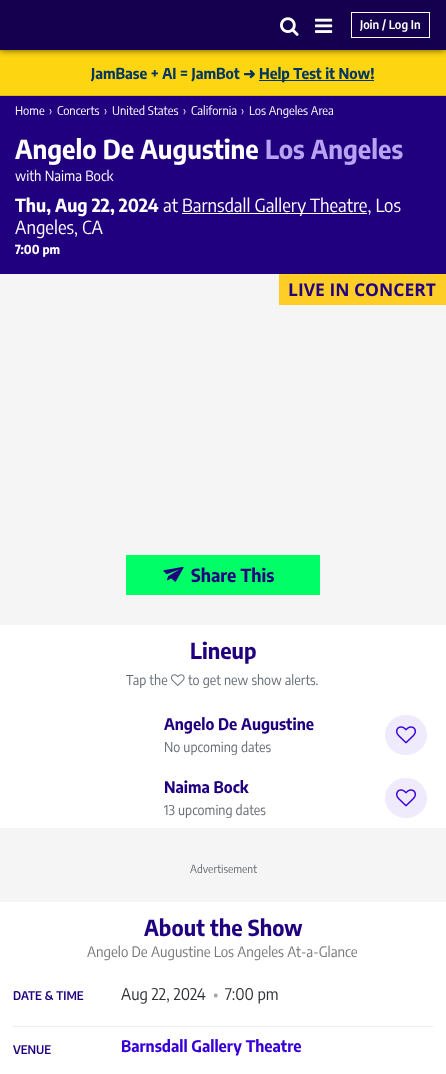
<!DOCTYPE html>
<meta charset="utf-8">
<style>body { margin: 0 } canvas { display: block }</style>
<canvas id="canvas" width="446" height="1074"></canvas>
<script type="module">
  const canvas = document.getElementById("canvas");
  const g = canvas.getContext("2d");
  g.miterLimit = 4;
  g.fontKerning = "normal";
  function drawText(s, x, y, [font, color]) {
    g.font = font;
    g.fillStyle = color;
    g.fillText(s, x, y);
  }
  function fillBox(x, y, w, h, color) {
    g.fillStyle = color;
    g.fillRect(x, y, w, h);
  }
  async function drawPicture(src, x, y, w, h) {
    const img = new Image();
    img.src = src;
    await img.decode();
    g.drawImage(img, x, y, w, h);
  }

  const s1 = ["600 12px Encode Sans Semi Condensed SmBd", "#FFFFFF"];
  const s2 = ["bold 15px Encode Sans Semi Condensed", "#013662"];
  const s3 = ["bold 15px DejaVu Sans", "#013662"];
  const s4 = ["12px Encode Sans Semi Condensed", "#FFFFFF"];
  const s5 = ["12px Encode Sans Semi Condensed", "#E0D7F9"];
  const s6 = ["bold 26px Encode Sans Semi Condensed", "#FFFFFF"];
  const s7 = ["bold 26px Encode Sans Semi Condensed", "#B7A3F1"];
  const s8 = ["14px Encode Sans Semi Condensed", "#FFFFFF"];
  const s9 = ["bold 18px Encode Sans Semi Condensed", "#FFFFFF"];
  const s10 = ["18px Encode Sans Semi Condensed", "#FFFFFF"];
  const s11 = ["bold 12.5px Encode Sans Semi Condensed", "#FFFFFF"];
  const s12 = ["bold 17.5px Open Sans", "#210080"];
  const s13 = ["bold 18px Encode Sans Semi Condensed", "#210080"];
  const s14 = ["bold 22px Encode Sans Semi Condensed", "#210080"];
  const s15 = ["13.5px Encode Sans Semi Condensed", "#666D76"];
  const s16 = ["bold 16px Encode Sans Semi Condensed", "#210080"];
  const s17 = ["11px Encode Sans Semi Condensed", "#666D76"];
  const s18 = ["14.25px Encode Sans Semi Condensed", "#777777"];
  const s19 = ["600 12px Encode Sans Semi Condensed SmBd", "#210080"];
  const s20 = ["16px Encode Sans Semi Condensed", "#2E3135"];
  const s21 = ["16px Encode Sans Semi Condensed", "#A3A7AD"];
  const s22 = ["bold 16px Encode Sans Semi Condensed", "#3800D7"];

  fillBox(0, 0, 446, 1074, "#FDD511");
  g.fillStyle = "rgba(0, 0, 0, 0.66)";
  g.filter = "blur(3.5px)";
  g.beginPath();
  g.rect(0, 0, 446, 50);
  g.fill();
  g.filter = "none";
  fillBox(0, 0, 446, 50, "#14004E");
  await drawPicture("pic1.png", 280, 17, 19, 19);
  await drawPicture("pic2.png", 315, 18, 18, 15);
  g.strokeStyle = "#FFFFFF";
  g.strokeRect(351.5, 12.5, 78, 25);
  drawText("Join / Log In", 360, 29, s1);
  fillBox(0, 95, 446, 1, "#DDBA0F");
  drawText("JamBase + AI = JamBot", 91, 79, s2);
  drawText("➜", 243, 79, s3);
  fillBox(259, 80, 115, 1, "#013662");
  drawText("Help Test it Now!", 259, 79, s2);
  fillBox(0, 274, 446, 628, "#F5F5F5");
  fillBox(0, 96, 446, 178, "#210080");
  drawText("Home", 15, 115, s4);
  drawText("›", 49, 115, s5);
  drawText("Concerts", 57, 115, s4);
  drawText("›", 104, 115, s5);
  drawText("United States", 112, 115, s4);
  drawText("›", 183, 115, s5);
  drawText("California", 191, 115, s4);
  drawText("›", 241, 115, s5);
  drawText("Los Angeles Area", 249, 115, s4);
  drawText("Angelo De Augustine", 15, 159, s6);
  drawText("Los Angeles", 265, 159, s7);
  drawText("with Naima Bock", 15, 181, s8);
  drawText("Thu, Aug 22, 2024", 15, 212, s9);
  drawText("at", 163, 212, s10);
  fillBox(182, 213, 185, 1, "#FFFFFF");
  drawText("Barnsdall Gallery Theatre, Los", 182, 212, s10);
  drawText("Angeles, CA", 15, 234, s10);
  drawText("7:00 pm", 15, 254, s11);
  fillBox(279, 274, 167, 31, "#FFCE26");
  drawText("LIVE IN CONCERT", 288, 296, s12);
  fillBox(126, 555, 194, 40, "#00FF66");
  await drawPicture("pic3.png", 163, 566, 21, 16);
  drawText("Share This", 191, 582, s13);
  fillBox(0, 625, 446, 203, "#FFFFFF");
  drawText("Lineup", 190, 659, s14);
  drawText("Tap the", 126, 685, s15);
  await drawPicture("pic4.png", 171, 674, 14, 12);
  drawText("to get new show alerts.", 188, 685, s15);
  drawText("Angelo De Augustine", 164, 730, s16);
  drawText("No upcoming dates", 164, 752, s15);
  g.fillStyle = "#EFEBFC";
  g.beginPath();
  g.roundRect(385.5, 715.5, 41, 39, 19.5);
  g.fill();
  g.strokeStyle = "#EFEBFC";
  g.stroke();
  await drawPicture("pic5.png", 396, 726, 20, 18);
  drawText("Naima Bock", 164, 793, s16);
  drawText("13 upcoming dates", 164, 815, s15);
  g.fillStyle = "#EFEBFC";
  g.beginPath();
  g.roundRect(385.5, 778.5, 41, 39, 19.5);
  g.fill();
  g.stroke();
  await drawPicture("pic5.png", 396, 789, 20, 18);
  drawText("Advertisement", 190, 873, s17);
  fillBox(0, 902, 446, 172, "#FFFFFF");
  drawText("About the Show", 144, 936, s14);
  drawText("Angelo De Augustine Los Angeles At-a-Glance", 87, 957, s18);
  drawText("DATE & TIME", 13, 1000, s19);
  drawText("Aug 22, 2024", 121, 1000, s20);
  drawText("•", 213, 1000, s21);
  drawText("7:00 pm", 225, 1000, s20);
  fillBox(13, 1026, 420, 1, "#EBECEE");
  drawText("VENUE", 13, 1054, s19);
  drawText("Barnsdall Gallery Theatre", 121, 1052, s22);
</script>
